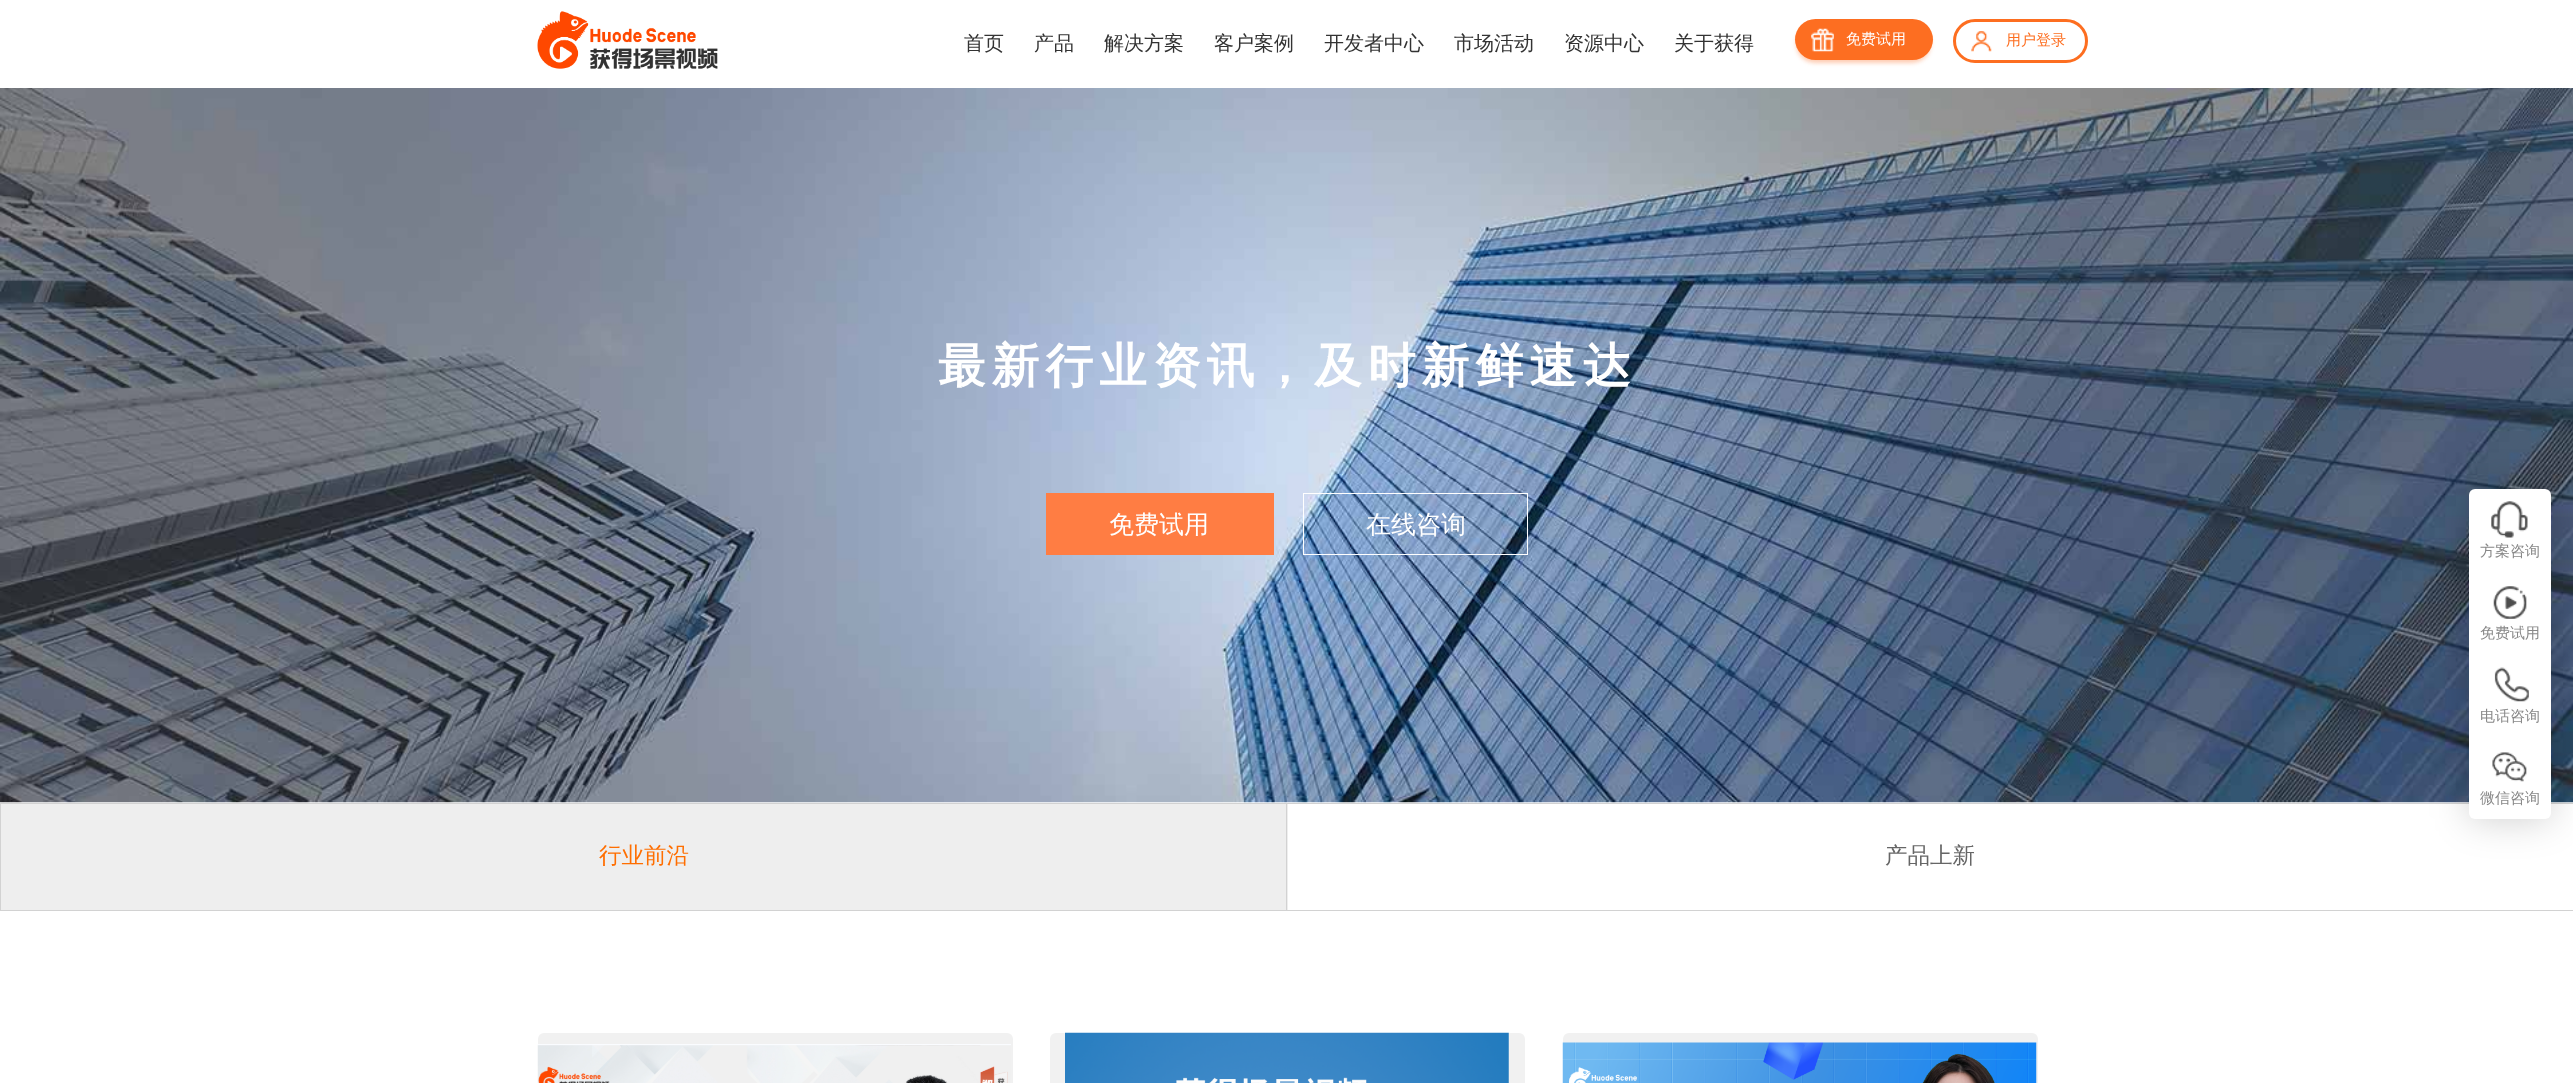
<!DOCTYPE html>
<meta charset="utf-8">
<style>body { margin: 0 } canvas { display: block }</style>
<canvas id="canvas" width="2573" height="1083"></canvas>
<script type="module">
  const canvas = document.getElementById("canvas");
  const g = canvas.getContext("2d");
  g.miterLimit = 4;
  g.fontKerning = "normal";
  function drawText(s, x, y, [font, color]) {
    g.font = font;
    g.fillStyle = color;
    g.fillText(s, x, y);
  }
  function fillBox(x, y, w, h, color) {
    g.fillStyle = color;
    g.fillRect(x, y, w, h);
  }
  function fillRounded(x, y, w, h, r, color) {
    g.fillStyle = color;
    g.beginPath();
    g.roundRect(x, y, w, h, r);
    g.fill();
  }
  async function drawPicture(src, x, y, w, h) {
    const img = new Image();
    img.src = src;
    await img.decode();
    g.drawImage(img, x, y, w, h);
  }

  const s1 = ["500 20px WenQuanYi Zen Hei", "#333333"];
  const s2 = ["500 15px WenQuanYi Zen Hei", "#FFFFFF"];
  const s3 = ["500 15px WenQuanYi Zen Hei", "#FD6E20"];
  const s4 = ["bold 47.5px WenQuanYi Zen Hei", "#FFFFFF"];
  const s5 = ["500 25px WenQuanYi Zen Hei", "#FFFFFF"];
  const s6 = ["500 15px WenQuanYi Zen Hei", "#888888"];
  const s7 = ["500 22.5px WenQuanYi Zen Hei", "#FF6E00"];
  const s8 = ["500 22.5px WenQuanYi Zen Hei", "#666666"];

  fillBox(0, 0, 2573, 1083, "#FFFFFF");
  await drawPicture("pic1.png", 537, 11, 181, 58);
  drawText("首页", 964, 50, s1);
  drawText("产品", 1034, 50, s1);
  drawText("解决方案", 1104, 50, s1);
  drawText("客户案例", 1214, 50, s1);
  drawText("开发者中心", 1324, 50, s1);
  drawText("市场活动", 1454, 50, s1);
  drawText("资源中心", 1564, 50, s1);
  drawText("关于获得", 1674, 50, s1);
  g.fillStyle = "rgba(253, 110, 33, 0.35)";
  g.filter = "blur(2px)";
  g.beginPath();
  g.roundRect(1796, 24, 135, 39, 19.5);
  g.fill();
  g.filter = "none";
  fillRounded(1795, 19, 138, 41, 20.5, "#FD6E21");
  await drawPicture("pic2.png", 1811, 28, 23, 24);
  drawText("免费试用", 1846, 44, s2);
  await drawPicture("pic3.png", 1971, 31, 21, 21);
  g.beginPath();
  g.roundRect(1954.5, 20.5, 132, 41, 20.5);
  g.strokeStyle = "#FD6E20";
  g.lineWidth = 3;
  g.stroke();
  drawText("用户登录", 2006, 45, s3);
  await drawPicture("pic4.png", 0, 88, 2573, 715);
  g.letterSpacing = "6.25px";
  drawText("最新行业资讯，及时新鲜速达", 938, 382, s4);
  fillBox(1046, 493, 228, 62, "#FF7D43");
  g.letterSpacing = "0px";
  drawText("免费试用", 1109, 533, s5);
  g.strokeStyle = "#FFFFFF";
  g.lineWidth = 1;
  g.strokeRect(1303.5, 493.5, 224, 61);
  drawText("在线咨询", 1366, 533, s5);
  g.strokeStyle = "#D2D2D2";
  g.strokeRect(0.5, 803.5, 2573, 107);
  g.fillStyle = "rgba(0, 0, 0, 0.2)";
  g.filter = "blur(19px)";
  g.beginPath();
  g.roundRect(2469, 489, 82, 330, 6);
  g.fill();
  g.filter = "none";
  fillRounded(2469, 489, 82, 330, 6, "#FFFFFF");
  await drawPicture("pic5.png", 2491, 501, 37, 37);
  drawText("方案咨询", 2480, 556, s6);
  await drawPicture("pic6.png", 2493, 586, 34, 33);
  drawText("免费试用", 2480, 638, s6);
  await drawPicture("pic7.png", 2494, 667, 35, 35);
  drawText("电话咨询", 2480, 721, s6);
  await drawPicture("pic8.png", 2492, 752, 35, 30);
  drawText("微信咨询", 2480, 803, s6);
  fillBox(1, 804, 1287, 106, "#EEEEEE");
  fillBox(1286, 804, 1, 106, "#D2D2D2");
  drawText("行业前沿", 599, 863, s7);
  drawText("产品上新", 1885, 863, s8);
  fillRounded(538, 1033, 475, 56, 6, "#F1F1F1");
  await drawPicture("pic9.png", 537, 1044, 474, 39);
  fillRounded(1050, 1033, 475, 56, 6, "#F1F1F1");
  await drawPicture("pic10.png", 1065, 1032, 444, 51);
  fillRounded(1563, 1033, 475, 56, 6, "#F1F1F1");
  await drawPicture("pic11.png", 1562, 1042, 475, 41);
</script>
